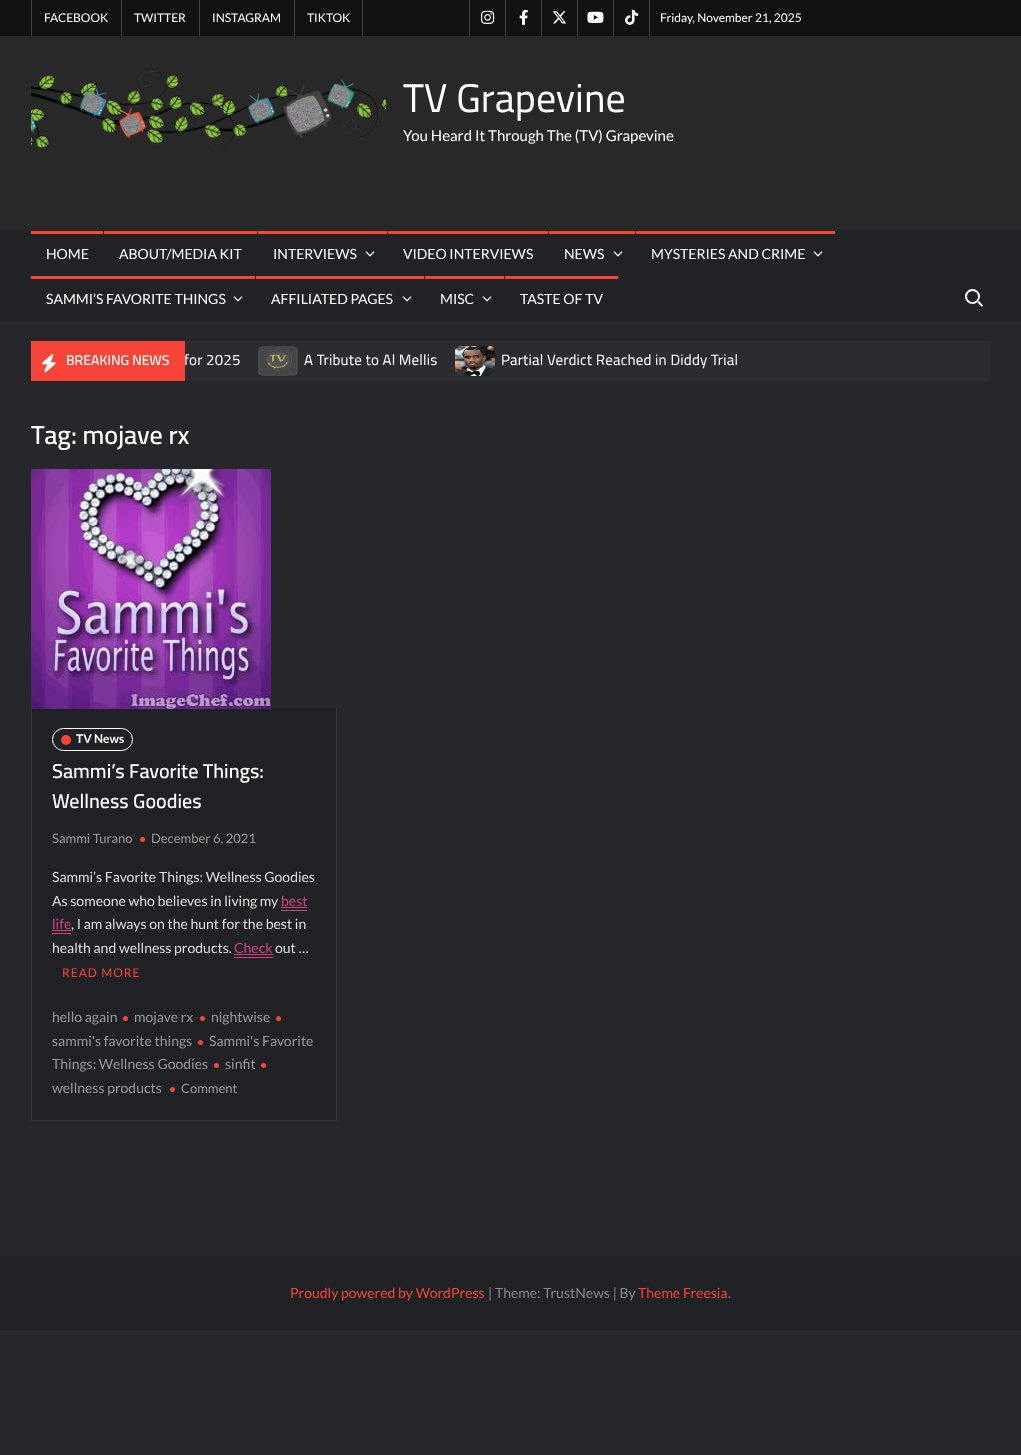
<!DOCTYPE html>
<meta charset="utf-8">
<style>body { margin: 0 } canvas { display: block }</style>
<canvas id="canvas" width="1021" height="1455"></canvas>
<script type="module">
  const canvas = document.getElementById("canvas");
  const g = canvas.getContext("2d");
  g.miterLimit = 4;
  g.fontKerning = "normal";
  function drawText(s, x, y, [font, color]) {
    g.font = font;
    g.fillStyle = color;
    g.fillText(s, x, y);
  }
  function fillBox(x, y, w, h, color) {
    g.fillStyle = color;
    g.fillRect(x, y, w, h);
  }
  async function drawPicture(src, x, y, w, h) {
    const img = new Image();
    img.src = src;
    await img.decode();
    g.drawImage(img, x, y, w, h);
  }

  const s1 = ["12px Lato", "#FFFFFF"];
  const s2 = ["40px Cairo", "#FFFFFF"];
  const s3 = ["15px Lato", "#FFFFFF"];
  const s4 = ["14px Lato", "#FFFFFF"];
  const s5 = ["15px Cairo", "#FFFFFF"];
  const s6 = ["600 14px Cairo", "#FFFFFF"];
  const s7 = ["600 26px Cairo", "#FFFFFF"];
  const s8 = ["bold 12px Lato", "#FFFFFF"];
  const s9 = ["600 20px Cairo", "#FFFFFF"];
  const s10 = ["13px Lato", "#999999"];
  const s11 = ["14px Lato", "#DFDFDF"];
  const s12 = ["14px Lato", "#D84189"];
  const s13 = ["12px Lato", "#F64538"];
  const s14 = ["14px Lato", "#999999"];
  const s15 = ["14px Lato", "#F64538"];
  const s16 = ["14px Lato", "#848790"];

  fillBox(0, 0, 1021, 1455, "#25272B");
  fillBox(0, 0, 1021, 36, "#111111");
  fillBox(31, 0, 1, 36, "#414141");
  drawText("FACEBOOK", 44, 22, s1);
  fillBox(121, 0, 1, 36, "#414141");
  drawText("TWITTER", 134, 22, s1);
  fillBox(199, 0, 1, 36, "#414141");
  drawText("INSTAGRAM", 212, 22, s1);
  fillBox(362, 0, 1, 36, "#414141");
  fillBox(294, 0, 1, 36, "#414141");
  drawText("TIKTOK", 307, 22, s1);
  fillBox(505, 0, 1, 36, "#414141");
  fillBox(469, 0, 1, 36, "#414141");
  await drawPicture("pic1.png", 481, 10, 14, 14);
  fillBox(541, 0, 1, 36, "#414141");
  await drawPicture("pic2.png", 519, 9, 9, 16);
  fillBox(577, 0, 1, 36, "#414141");
  await drawPicture("pic3.png", 552, 11, 15, 13);
  fillBox(613, 0, 1, 36, "#414141");
  await drawPicture("pic4.png", 587, 11, 17, 12);
  fillBox(649, 0, 1, 36, "#414141");
  await drawPicture("pic5.png", 625, 9, 14, 16);
  drawText("Friday, November 21, 2025", 660, 22, s1);
  fillBox(0, 36, 1021, 195, "#282828");
  await drawPicture("pic6.png", 31, 71, 355, 78);
  drawText("TV Grapevine", 403, 112, s2);
  drawText("You Heard It Through The (TV) Grapevine", 403, 141, s3);
  fillBox(0, 231, 1021, 90, "#212226");
  fillBox(31, 231, 72, 3, "#F64538");
  drawText("HOME", 46, 259, s4);
  fillBox(104, 231, 153, 3, "#F64538");
  drawText("ABOUT/MEDIA KIT", 119, 259, s4);
  fillBox(258, 231, 129, 3, "#F64538");
  drawText("INTERVIEWS", 273, 259, s4);
  await drawPicture("pic7.png", 365, 251, 10, 6);
  fillBox(388, 231, 160, 3, "#F64538");
  drawText("VIDEO INTERVIEWS", 403, 259, s4);
  fillBox(549, 231, 86, 3, "#F64538");
  drawText("NEWS", 564, 259, s4);
  await drawPicture("pic7.png", 613, 251, 10, 6);
  fillBox(636, 231, 199, 3, "#F64538");
  drawText("MYSTERIES AND CRIME", 651, 259, s4);
  await drawPicture("pic7.png", 813, 251, 10, 6);
  fillBox(31, 276, 224, 3, "#F64538");
  drawText("SAMMI’S FAVORITE THINGS", 46, 304, s4);
  await drawPicture("pic7.png", 233, 296, 10, 6);
  fillBox(256, 276, 168, 3, "#F64538");
  drawText("AFFILIATED PAGES", 271, 304, s4);
  await drawPicture("pic7.png", 402, 296, 10, 6);
  fillBox(425, 276, 79, 3, "#F64538");
  drawText("MISC", 440, 304, s4);
  await drawPicture("pic7.png", 482, 296, 10, 6);
  fillBox(505, 276, 113, 3, "#F64538");
  drawText("TASTE OF TV", 520, 304, s4);
  g.beginPath();
  g.arc(972.5, 296.5, 6.5, 0, Math.PI * 2);
  g.strokeStyle = "#FFFFFF";
  g.lineWidth = 2;
  g.stroke();
  g.beginPath();
  g.moveTo(979, 301);
  g.lineTo(983, 305.5);
  g.lineTo(982, 307);
  g.lineTo(977.5, 302.5);
  g.closePath();
  g.fill();
  fillBox(185, 341, 805, 40, "#2A2C30");
  g.letterSpacing = "0.2px";
  drawText("for 2025", 184, 365, s5);
  fillBox(31, 341, 154, 40, "#F64538");
  await drawPicture("pic8.png", 42, 354, 14, 19);
  g.letterSpacing = "0px";
  drawText("BREAKING NEWS", 66, 365, s6);
  await drawPicture("pic9.png", 258, 346, 40, 30);
  g.letterSpacing = "0.2px";
  drawText("A Tribute to Al Mellis", 304, 365, s5);
  await drawPicture("pic10.png", 455, 346, 40, 30);
  drawText("Partial Verdict Reached in Diddy Trial", 501, 365, s5);
  g.letterSpacing = "0px";
  drawText("Tag: mojave rx", 31, 444, s7);
  fillBox(31, 708, 306, 413, "#202125");
  g.fillStyle = "#36373B";
  g.beginPath();
  g.moveTo(337, 708);
  g.lineTo(337, 1121);
  g.lineTo(336, 1120);
  g.lineTo(336, 708);
  g.closePath();
  g.fill();
  g.fillStyle = "rgba(255, 255, 255, 0.1)";
  g.beginPath();
  g.moveTo(337, 1121);
  g.lineTo(31, 1121);
  g.lineTo(32, 1120);
  g.lineTo(336, 1120);
  g.closePath();
  g.fill();
  g.beginPath();
  g.moveTo(31, 1121);
  g.lineTo(31, 708);
  g.lineTo(32, 708);
  g.lineTo(32, 1120);
  g.closePath();
  g.fill();
  await drawPicture("pic11.png", 31, 469, 240, 240);
  g.beginPath();
  g.roundRect(52.5, 728.5, 80, 22, 11);
  g.lineWidth = 1;
  g.stroke();
  g.fillStyle = "#F64538";
  g.beginPath();
  g.arc(66, 740, 5, 0, Math.PI * 2);
  g.fill();
  drawText("TV News", 76, 743, s8);
  drawText("Sammi’s Favorite Things:", 52, 778, s9);
  drawText("Wellness Goodies", 52, 808, s9);
  drawText("Sammi Turano", 52, 843, s10);
  g.fillStyle = "#F64538";
  g.beginPath();
  g.arc(142.5, 839.5, 2.5, 0, Math.PI * 2);
  g.fill();
  drawText("December 6, 2021", 151, 843, s10);
  drawText("Sammi’s Favorite Things: Wellness Goodies", 52, 882, s11);
  drawText("As someone who believes in living my", 52, 906, s11);
  drawText("best", 281, 906, s12);
  fillBox(281, 910, 26, 1, "#D84189");
  fillBox(281, 907, 26, 1, "#D84189");
  drawText("life", 52, 929, s12);
  fillBox(52, 933, 19, 1, "#D84189");
  fillBox(52, 930, 19, 1, "#D84189");
  drawText(", I am always on the hunt for the best in", 71, 929, s11);
  drawText("health and wellness products.", 52, 953, s11);
  drawText("Check", 234, 953, s12);
  fillBox(234, 957, 39, 1, "#D84189");
  fillBox(234, 954, 39, 1, "#D84189");
  drawText("out …", 275, 953, s11);
  g.letterSpacing = "1px";
  drawText("READ MORE", 62, 977, s13);
  g.letterSpacing = "0px";
  drawText("hello again", 52, 1022, s14);
  g.fillStyle = "#F64538";
  g.beginPath();
  g.arc(125.5, 1018.5, 2.5, 0, Math.PI * 2);
  g.fill();
  drawText("mojave rx", 134, 1022, s14);
  g.fillStyle = "#F64538";
  g.beginPath();
  g.arc(202.5, 1018.5, 2.5, 0, Math.PI * 2);
  g.fill();
  drawText("nightwise", 211, 1022, s14);
  g.fillStyle = "#F64538";
  g.beginPath();
  g.arc(200.5, 1042.5, 2.5, 0, Math.PI * 2);
  g.fill();
  drawText("Sammi's Favorite", 209, 1046, s14);
  drawText("Things: Wellness Goodies", 52, 1069, s14);
  g.fillStyle = "#F64538";
  g.beginPath();
  g.arc(278.5, 1018.5, 2.5, 0, Math.PI * 2);
  g.fill();
  drawText("sammi's favorite things", 52, 1046, s14);
  g.fillStyle = "#F64538";
  g.beginPath();
  g.arc(216.5, 1065.5, 2.5, 0, Math.PI * 2);
  g.fill();
  drawText("sinfit", 225, 1069, s14);
  g.fillStyle = "#F64538";
  g.beginPath();
  g.arc(263.5, 1065.5, 2.5, 0, Math.PI * 2);
  g.fill();
  drawText("wellness products", 52, 1093, s14);
  g.fillStyle = "#F64538";
  g.beginPath();
  g.arc(172.5, 1089.5, 2.5, 0, Math.PI * 2);
  g.fill();
  drawText("Comment", 181, 1093, s10);
  fillBox(0, 1256, 1021, 74, "#202125");
  drawText("Proudly powered by WordPress", 290, 1298, s15);
  drawText("| Theme: TrustNews | By", 488, 1298, s16);
  drawText("Theme Freesia", 638, 1298, s15);
  drawText(".", 728, 1298, s16);
</script>
